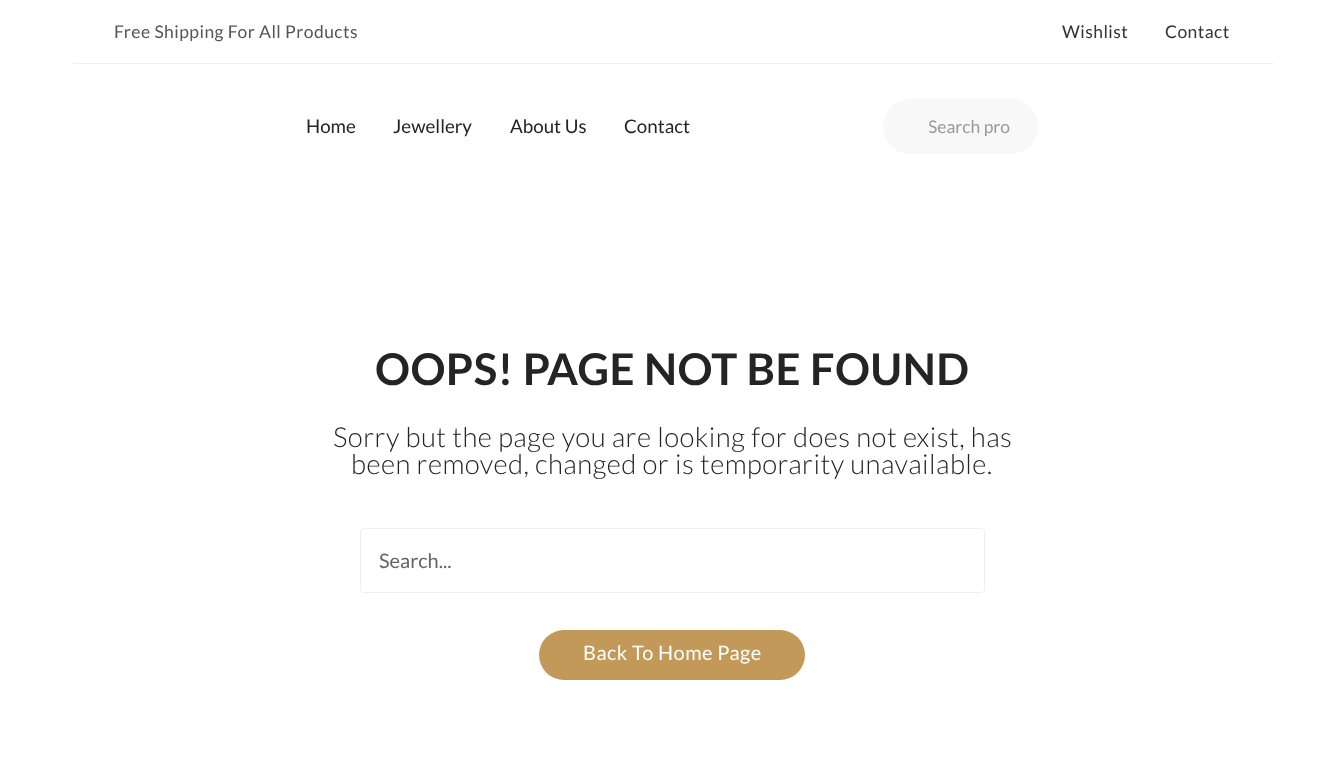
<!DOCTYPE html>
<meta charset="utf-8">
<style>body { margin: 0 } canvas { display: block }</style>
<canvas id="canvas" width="1343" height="784"></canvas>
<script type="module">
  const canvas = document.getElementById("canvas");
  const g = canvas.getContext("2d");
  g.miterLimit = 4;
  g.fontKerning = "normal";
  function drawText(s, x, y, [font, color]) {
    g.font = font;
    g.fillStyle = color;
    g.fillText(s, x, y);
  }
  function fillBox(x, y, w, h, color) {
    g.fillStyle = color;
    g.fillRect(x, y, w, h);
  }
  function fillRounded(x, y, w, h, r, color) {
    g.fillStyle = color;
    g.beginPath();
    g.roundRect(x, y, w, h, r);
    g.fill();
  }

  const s1 = ["17.5px Lato", "#555555"];
  const s2 = ["17.5px Lato", "#333333"];
  const s3 = ["18.75px Lato", "#242424"];
  const s4 = ["17.5px Lato", "#999999"];
  const s5 = ["bold 43.75px Lato", "#242424"];
  const s6 = ["300 27.5px Lato", "#242424"];
  const s7 = ["20px Lato", "#666666"];
  const s8 = ["20px Lato", "#FFFFFF"];

  fillBox(0, 0, 1343, 784, "#FFFFFF");
  fillBox(73, 63, 1200, 1, "#EFEFEF");
  g.letterSpacing = "0.45px";
  drawText("Free Shipping For All Products", 114, 38, s1);
  drawText("Wishlist", 1062, 38, s2);
  drawText("Contact", 1165, 38, s2);
  g.letterSpacing = "0px";
  drawText("Home", 306, 133, s3);
  drawText("Jewellery", 393, 133, s3);
  drawText("About Us", 510, 133, s3);
  drawText("Contact", 624, 133, s3);
  fillRounded(883, 99, 155, 55, 27.5, "#F8F8F8");
  g.save();
  g.beginPath();
  g.roundRect(929, 99, 109, 55, 27.5);
  g.clip();
  drawText("Search pro", 928, 133, s4);
  g.restore();
  g.letterSpacing = "0.45px";
  drawText("OOPS! PAGE NOT BE FOUND", 375, 385, s5);
  drawText("Sorry but the page you are looking for does not exist, has", 333, 447, s6);
  drawText("been removed, changed or is temporarity unavailable.", 351, 474, s6);
  g.beginPath();
  g.roundRect(360.5, 528.5, 624, 64, 3.5);
  g.strokeStyle = "#EFEFEF";
  g.stroke();
  g.letterSpacing = "0px";
  drawText("Search...", 379, 568, s7);
  fillRounded(539, 630, 266, 50, 25, "#C29958");
  g.letterSpacing = "0.45px";
  drawText("Back To Home Page", 583, 660, s8);
</script>
